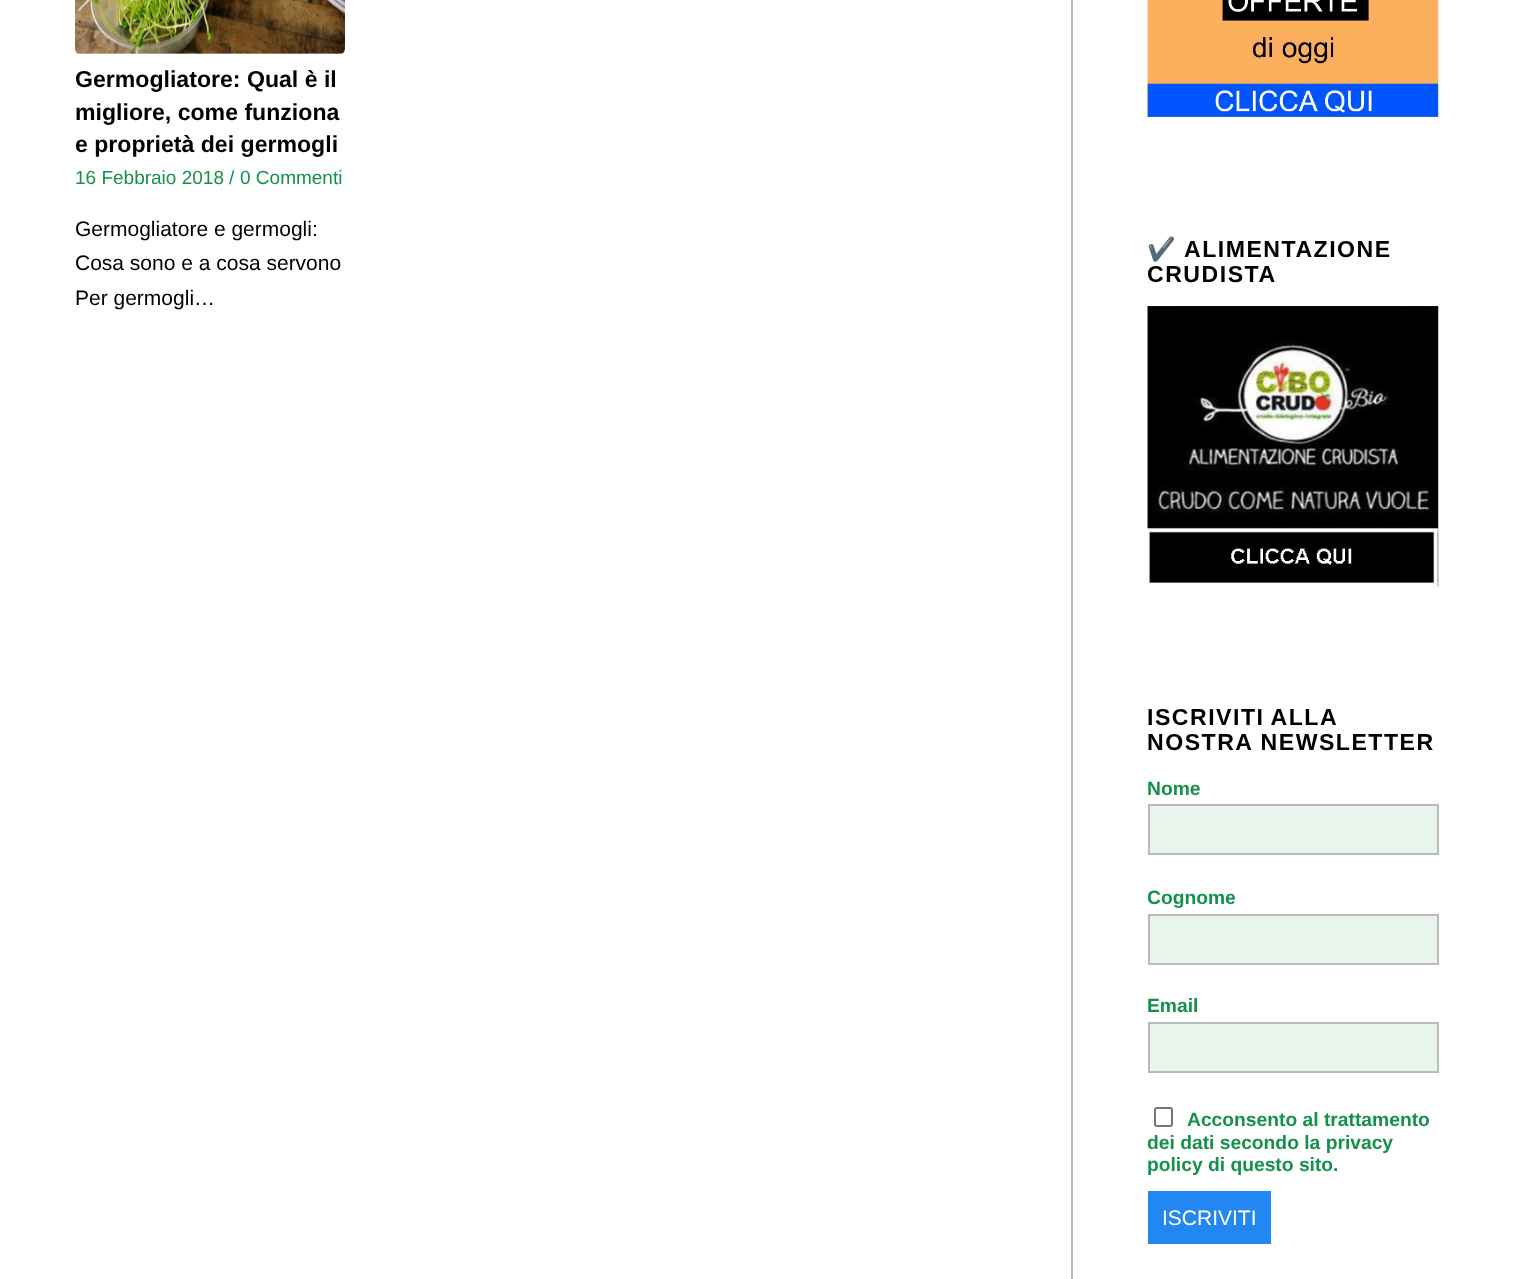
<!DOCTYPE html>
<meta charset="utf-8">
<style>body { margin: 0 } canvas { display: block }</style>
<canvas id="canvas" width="1513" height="1279"></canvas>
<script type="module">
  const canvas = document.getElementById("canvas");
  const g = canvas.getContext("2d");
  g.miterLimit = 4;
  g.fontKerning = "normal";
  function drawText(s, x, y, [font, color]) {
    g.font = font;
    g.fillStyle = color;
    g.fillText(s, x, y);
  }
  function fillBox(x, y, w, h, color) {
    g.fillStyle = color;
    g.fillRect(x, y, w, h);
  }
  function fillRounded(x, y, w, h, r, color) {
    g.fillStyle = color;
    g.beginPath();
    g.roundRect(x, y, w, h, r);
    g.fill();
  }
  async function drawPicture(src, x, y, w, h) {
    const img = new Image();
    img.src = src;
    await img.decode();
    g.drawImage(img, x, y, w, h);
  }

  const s1 = ["bold 23.1px Liberation Sans", "#000000"];
  const s2 = ["19px Liberation Sans", "#14914A"];
  const s3 = ["21px Liberation Sans", "#000000"];
  const s4 = ["bold 23.1px Noto Color Emoji", "#000000"];
  const s5 = ["bold 19.25px Liberation Sans", "#14914A"];
  const s6 = ["21px Liberation Sans", "#FFFFFF"];

  fillBox(0, 0, 1513, 1279, "#FFFFFF");
  fillRounded(75, -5, 270, 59, 5, "#E7F5ED");
  await drawPicture("pic1.png", 75, 0, 270, 54);
  drawText("Germogliatore: Qual è il", 75, 87, s1);
  drawText("migliore, come funziona", 75, 120, s1);
  drawText("e proprietà dei germogli", 75, 152, s1);
  drawText("16 Febbraio 2018", 75, 184, s2);
  drawText("/", 229, 184, s2);
  drawText("0 Commenti", 240, 184, s2);
  drawText("Germogliatore e germogli:", 75, 236, s3);
  drawText("Cosa sono e a cosa servono", 75, 270, s3);
  drawText("Per germogli…", 75, 305, s3);
  fillBox(1071, 0, 2, 1279, "#BABABA");
  await drawPicture("pic2.png", 1147, 0, 292, 117);
  g.letterSpacing = "1.5px";
  drawText("✔️", 1147, 257, s4);
  drawText("ALIMENTAZIONE", 1184, 257, s1);
  drawText("CRUDISTA", 1147, 282, s1);
  await drawPicture("pic3.png", 1147, 306, 292, 281);
  g.wordSpacing = "-1px";
  drawText("ISCRIVITI ALLA", 1147, 725, s1);
  g.wordSpacing = "0px";
  drawText("NOSTRA NEWSLETTER", 1147, 750, s1);
  g.letterSpacing = "0px";
  drawText("Nome", 1147, 795, s5);
  g.fillStyle = "#E7F5ED";
  g.beginPath();
  g.rect(1149, 805, 289, 49);
  g.fill();
  g.strokeStyle = "#BABABA";
  g.lineWidth = 2;
  g.stroke();
  drawText("Cognome", 1147, 904, s5);
  g.fillStyle = "#E7F5ED";
  g.beginPath();
  g.rect(1149, 915, 289, 49);
  g.fill();
  g.stroke();
  drawText("Email", 1147, 1012, s5);
  g.fillStyle = "#E7F5ED";
  g.beginPath();
  g.rect(1149, 1023, 289, 49);
  g.fill();
  g.stroke();
  g.beginPath();
  g.roundRect(1155, 1108, 17, 18, 2);
  g.strokeStyle = "#767676";
  g.stroke();
  drawText("Acconsento al trattamento", 1187, 1126, s5);
  drawText("dei dati secondo la privacy", 1147, 1149, s5);
  drawText("policy di questo sito.", 1147, 1171, s5);
  fillBox(1148, 1191, 123, 53, "#2287F2");
  drawText("ISCRIVITI", 1162, 1225, s6);
</script>
